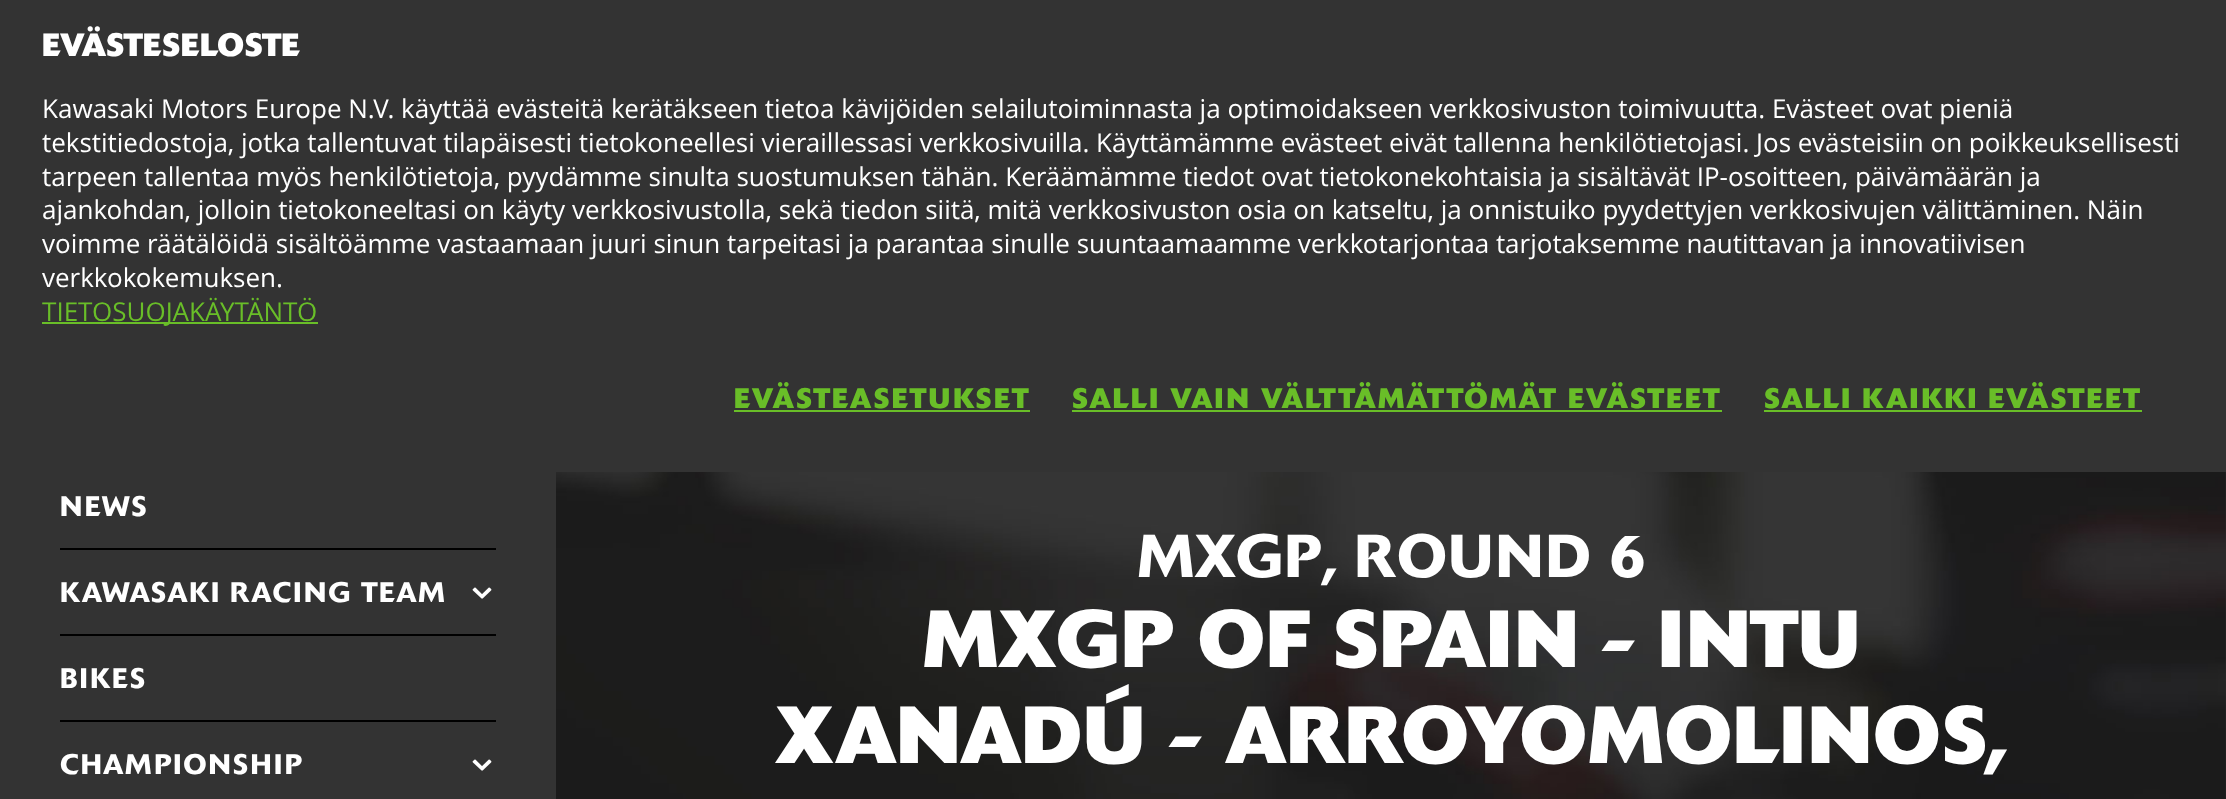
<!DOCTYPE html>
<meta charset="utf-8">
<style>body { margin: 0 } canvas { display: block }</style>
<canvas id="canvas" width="2226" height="799"></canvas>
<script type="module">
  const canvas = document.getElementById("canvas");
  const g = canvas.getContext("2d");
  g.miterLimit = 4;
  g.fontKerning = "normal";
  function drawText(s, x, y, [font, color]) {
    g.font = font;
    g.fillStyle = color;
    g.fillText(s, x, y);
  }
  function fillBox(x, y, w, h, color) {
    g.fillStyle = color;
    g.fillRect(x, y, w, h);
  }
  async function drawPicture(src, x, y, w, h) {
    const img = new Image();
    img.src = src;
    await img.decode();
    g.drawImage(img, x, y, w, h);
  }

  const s1 = ["bold 32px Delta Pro", "#FFFFFF"];
  const s2 = ["26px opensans", "#FFFFFF"];
  const s3 = ["26px opensans", "#69BE28"];
  const s4 = ["bold 28px Delta Pro", "#69BE28"];
  const s5 = ["500 28px Delta Pro", "#FFFFFF"];
  const s6 = ["500 60px Delta Pro", "#FFFFFF"];
  const s7 = ["bold 80px Delta Pro", "#FFFFFF"];

  fillBox(0, 0, 2226, 799, "#333333");
  drawText("EVÄSTESELOSTE", 42, 56, s1);
  drawText("Kawasaki Motors Europe N.V. käyttää evästeitä kerätäkseen tietoa kävijöiden selailutoiminnasta ja optimoidakseen verkkosivuston toimivuutta. Evästeet ovat pieniä", 42, 118, s2);
  drawText("tekstitiedostoja, jotka tallentuvat tilapäisesti tietokoneellesi vieraillessasi verkkosivuilla. Käyttämämme evästeet eivät tallenna henkilötietojasi. Jos evästeisiin on poikkeuksellisesti", 42, 152, s2);
  drawText("tarpeen tallentaa myös henkilötietoja, pyydämme sinulta suostumuksen tähän. Keräämämme tiedot ovat tietokonekohtaisia ja sisältävät IP-osoitteen, päivämäärän ja", 42, 186, s2);
  drawText("ajankohdan, jolloin tietokoneeltasi on käyty verkkosivustolla, sekä tiedon siitä, mitä verkkosivuston osia on katseltu, ja onnistuiko pyydettyjen verkkosivujen välittäminen. Näin", 42, 219, s2);
  drawText("voimme räätälöidä sisältöämme vastaamaan juuri sinun tarpeitasi ja parantaa sinulle suuntaamaamme verkkotarjontaa tarjotaksemme nautittavan ja innovatiivisen", 42, 253, s2);
  drawText("verkkokokemuksen.", 42, 287, s2);
  fillBox(42, 322, 276, 2, "#69BE28");
  drawText("TIETOSUOJAKÄYTÄNTÖ", 42, 321, s3);
  g.letterSpacing = "2px";
  drawText("EVÄSTEASETUKSET", 734, 408, s4);
  fillBox(734, 410, 296, 2, "#69BE28");
  drawText("SALLI VAIN VÄLTTÄMÄTTÖMÄT EVÄSTEET", 1072, 408, s4);
  fillBox(1072, 410, 650, 2, "#69BE28");
  drawText("SALLI KAIKKI EVÄSTEET", 1764, 408, s4);
  fillBox(1764, 410, 378, 2, "#69BE28");
  g.letterSpacing = "1.4px";
  drawText("NEWS", 60, 516, s5);
  fillBox(60, 548, 436, 2, "#000000");
  fillBox(60, 634, 436, 2, "#000000");
  drawText("KAWASAKI RACING TEAM", 60, 602, s5);
  await drawPicture("pic1.png", 472, 587, 20, 12);
  drawText("BIKES", 60, 688, s5);
  fillBox(60, 720, 436, 2, "#000000");
  drawText("CHAMPIONSHIP", 60, 774, s5);
  await drawPicture("pic1.png", 472, 759, 20, 12);
  await drawPicture("pic2.png", 556, 472, 1670, 327);
  g.letterSpacing = "0px";
  drawText("MXGP, ROUND 6", 1137, 577, s6);
  drawText("MXGP OF SPAIN - INTU", 923, 667, s7);
  drawText("XANADÚ - ARROYOMOLINOS,", 775, 763, s7);
</script>
